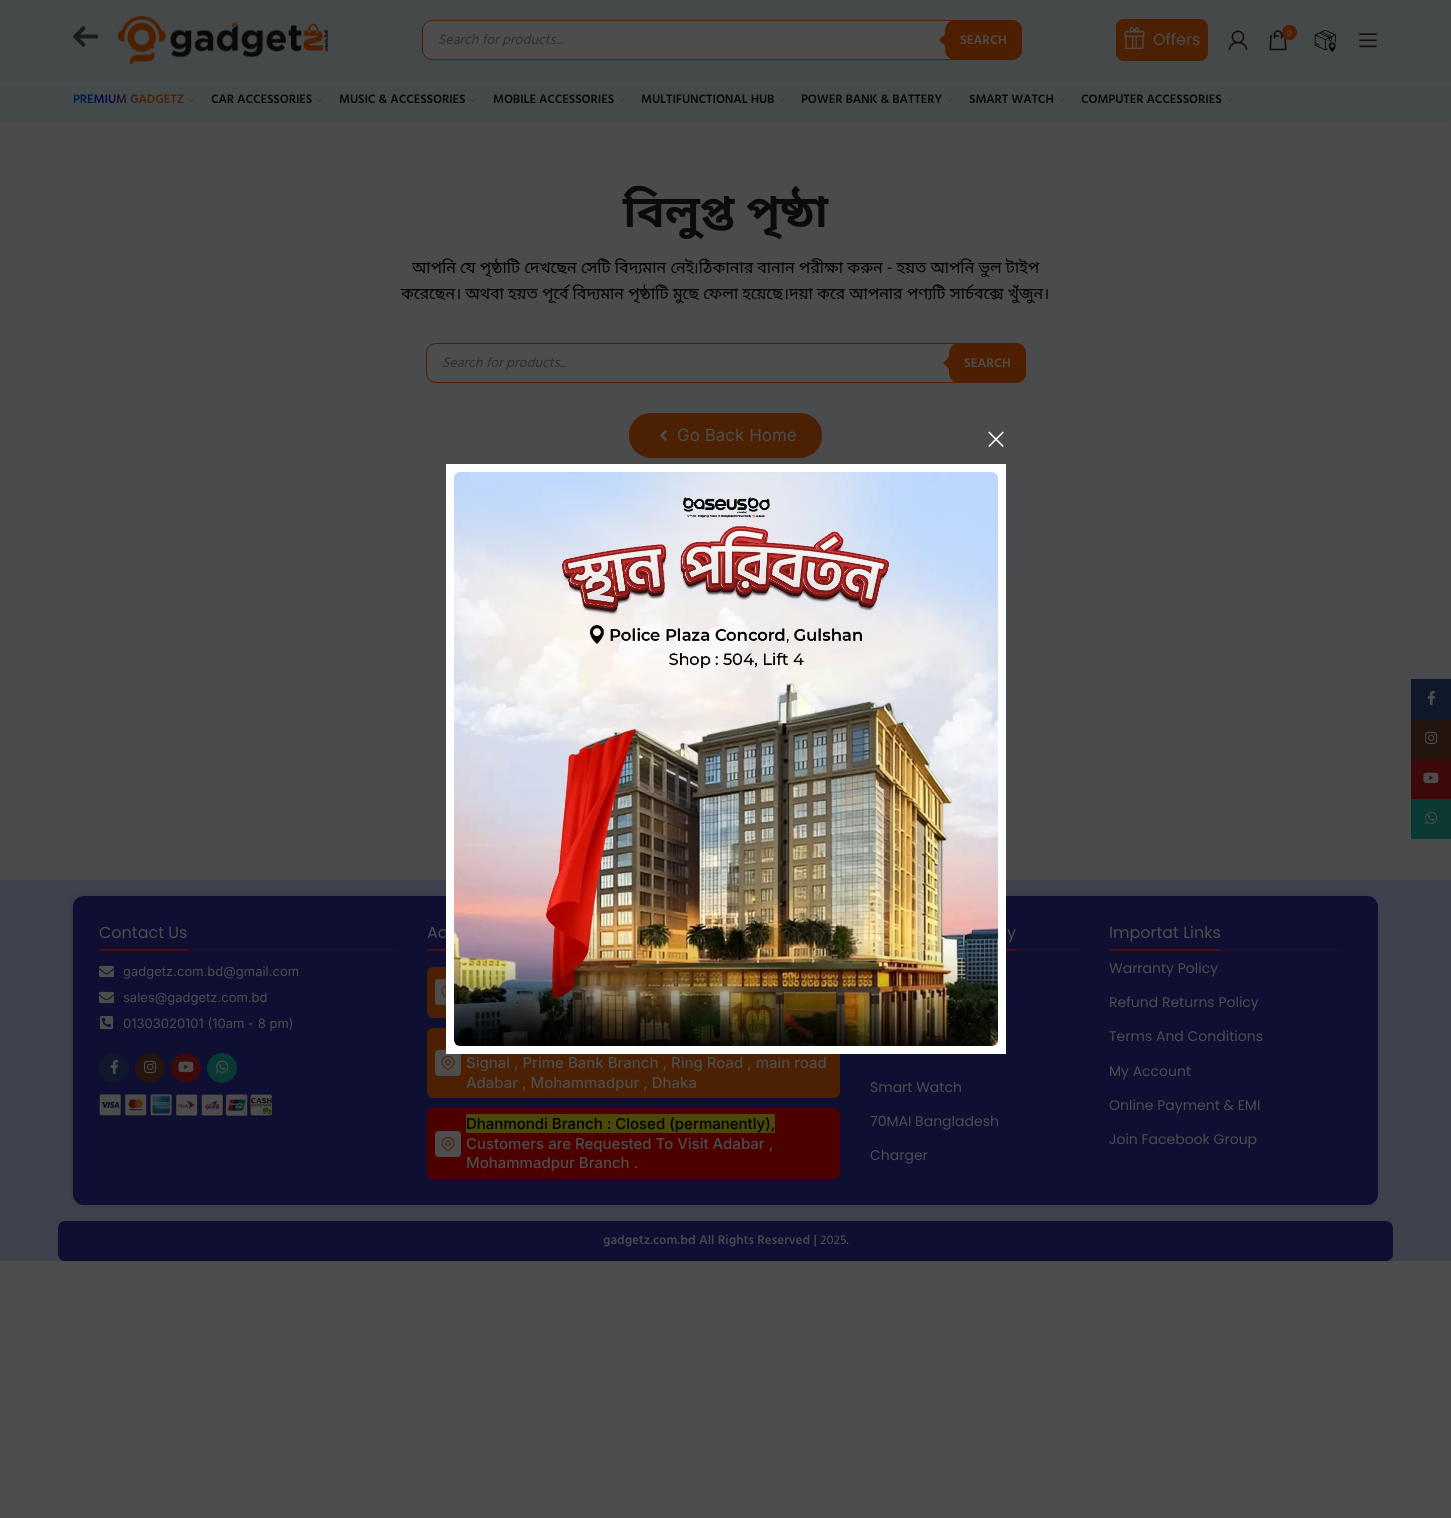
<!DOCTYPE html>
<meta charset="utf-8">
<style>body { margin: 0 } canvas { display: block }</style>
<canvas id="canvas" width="1451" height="1518"></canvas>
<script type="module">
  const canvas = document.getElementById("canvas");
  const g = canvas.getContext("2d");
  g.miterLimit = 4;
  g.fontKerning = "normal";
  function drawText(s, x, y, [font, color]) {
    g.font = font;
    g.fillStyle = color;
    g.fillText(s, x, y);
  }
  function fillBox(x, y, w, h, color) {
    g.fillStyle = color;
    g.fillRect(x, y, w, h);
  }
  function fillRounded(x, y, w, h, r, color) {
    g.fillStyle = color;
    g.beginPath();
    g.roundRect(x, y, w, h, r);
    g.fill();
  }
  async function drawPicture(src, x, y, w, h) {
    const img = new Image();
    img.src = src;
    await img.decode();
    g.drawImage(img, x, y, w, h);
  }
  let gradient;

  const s1 = ["italic 14px Hind", "#2E2E2E"];
  const s2 = ["600 13px Hind", "#4D4D4D"];
  const s3 = ["16px Poppins", "#4D4D4D"];
  const s4 = ["9px Hind", "#4D4D4D"];
  const s5 = ["600 12.5px Hind", "#0B0B0B"];
  const s6 = ["bold 45px Noto Sans Bengali", "#0B0B0B"];
  const s7 = ["16px Noto Sans Bengali", "#000000"];
  const s8 = ["17px Inter", "#4D4D4D"];
  const s9 = ["13px Inter", "#4D4D4D"];
  const s10 = ["500 15px Inter", "#4D4D4D"];
  const s11 = ["500 15px Inter", "#000000"];
  const s12 = ["14px Poppins", "#4D4D4D"];
  const s13 = ["600 13px Hind", "#46464A"];
  const s14 = ["13px Hind", "#4D4D4D"];

  fillBox(0, 0, 1451, 1518, "#4D4D4D");
  fillBox(0, 121, 1451, 759, "#4A4B4D");
  g.fillStyle = "rgba(60, 34, 17, 0.32)";
  g.filter = "blur(1px)";
  g.beginPath();
  g.rect(1, 83, 1449, 38);
  g.fill();
  g.filter = "none";
  fillBox(0, 0, 1451, 80, "#464949");
  fillBox(0, 80, 1451, 1, "#464646");
  await drawPicture("pic1.png", 73, 26, 25, 21);
  await drawPicture("pic2.png", 118, 16, 210, 48);
  g.fillStyle = "#4D4D4D";
  g.beginPath();
  g.roundRect(422.5, 20.5, 599, 39, 9.5);
  g.fill();
  g.strokeStyle = "#4D1F00";
  g.stroke();
  drawText("Search for products...", 438, 44, s1);
  fillRounded(945, 20, 77, 40, 10, "#4D1F00");
  g.beginPath();
  g.moveTo(947, 32);
  g.lineTo(947, 48);
  g.lineTo(939, 40);
  g.closePath();
  g.fill();
  drawText("SEARCH", 960, 44, s2);
  fillRounded(1116, 19, 92, 42, 8, "#4C2002");
  await drawPicture("pic3.png", 1124, 27, 21, 22);
  drawText("Offers", 1153, 45, s3);
  await drawPicture("pic4.png", 1228, 30, 20, 20);
  await drawPicture("pic5.png", 1269, 30, 18, 21);
  g.fillStyle = "#4D1F00";
  g.beginPath();
  g.arc(1289.5, 32.5, 7.5, 0, Math.PI * 2);
  g.fill();
  drawText("0", 1287, 36, s4);
  await drawPicture("pic6.png", 1314, 29, 22, 23);
  await drawPicture("pic7.png", 1359, 33, 18, 15);
  fillBox(0, 81, 1451, 39, "#454B4B");
  fillBox(0, 120, 1451, 1, "#4A4747");
  g.letterSpacing = "-0.1px";
  g.font = "600 12.5px Hind";
  gradient = g.createLinearGradient(73, 100, 184, 101);
  gradient.addColorStop(0, "#02244D");
  gradient.addColorStop(0.31, "#07054D");
  gradient.addColorStop(0.62, "#4C2006");
  g.fillStyle = gradient;
  g.fillText("PREMIUM GADGETZ", 73, 103);
  await drawPicture("pic8.png", 188, 98, 6, 4);
  drawText("CAR ACCESSORIES", 211, 103, s5);
  await drawPicture("pic8.png", 316, 98, 6, 4);
  drawText("MUSIC & ACCESSORIES", 339, 103, s5);
  await drawPicture("pic8.png", 470, 98, 6, 4);
  drawText("MOBILE ACCESSORIES", 493, 103, s5);
  await drawPicture("pic8.png", 618, 98, 6, 4);
  drawText("MULTIFUNCTIONAL HUB", 641, 103, s5);
  await drawPicture("pic8.png", 778, 98, 6, 4);
  drawText("POWER BANK & BATTERY", 801, 103, s5);
  await drawPicture("pic8.png", 946, 98, 6, 4);
  drawText("SMART WATCH", 969, 103, s5);
  await drawPicture("pic8.png", 1058, 98, 6, 4);
  drawText("COMPUTER ACCESSORIES", 1081, 103, s5);
  await drawPicture("pic8.png", 1226, 98, 6, 4);
  g.letterSpacing = "0px";
  drawText("বিলুপ্ত পৃষ্ঠা", 623, 227, s6);
  drawText("আপনি যে পৃষ্ঠাটি দেখছেন সেটি বিদ্যমান নেই৷ঠিকানার বানান পরীক্ষা করুন - হয়ত আপনি ভুল টাইপ", 412, 273, s7);
  drawText("করেছেন। অথবা হয়ত পূর্বে বিদ্যমান পৃষ্ঠাটি মুছে ফেলা হয়েছে।দয়া করে আপনার পণ্যটি সার্চবক্সে খুঁজুন।", 401, 299, s7);
  g.fillStyle = "#4D4D4D";
  g.beginPath();
  g.roundRect(426.5, 343.5, 599, 39, 9.5);
  g.fill();
  g.stroke();
  drawText("Search for products...", 442, 367, s1);
  fillRounded(949, 343, 77, 40, 10, "#4D1F00");
  g.beginPath();
  g.moveTo(951, 355);
  g.lineTo(951, 371);
  g.lineTo(943, 363);
  g.closePath();
  g.fill();
  drawText("SEARCH", 964, 367, s2);
  g.fillStyle = "#4C2002";
  g.beginPath();
  g.roundRect(630, 414, 191, 43, 21);
  g.fill();
  g.strokeStyle = "#4C2002";
  g.lineWidth = 2;
  g.stroke();
  await drawPicture("pic9.png", 660, 430, 7, 11);
  drawText("Go Back Home", 677, 441, s8);
  fillBox(0, 880, 1451, 381, "#3F424D");
  g.fillStyle = "rgba(0, 0, 0, 0.32)";
  g.filter = "blur(3px)";
  g.beginPath();
  g.roundRect(74, 899, 1299, 303, 8);
  g.fill();
  g.filter = "none";
  fillRounded(73, 896, 1305, 309, 11, "#0E0F32");
  fillBox(188, 949, 209, 2, "#1D0F29");
  fillBox(99, 949, 89, 2, "#4D1111");
  drawText("Contact Us", 99, 938, s3);
  await drawPicture("pic10.png", 99, 965, 15, 13);
  drawText("gadgetz.com.bd@gmail.com", 123, 976, s9);
  await drawPicture("pic10.png", 99, 991, 15, 13);
  drawText("sales@gadgetz.com.bd", 123, 1002, s9);
  await drawPicture("pic11.png", 99, 1015, 15, 15);
  drawText("01303020101 (10am - 8 pm)", 123, 1028, s9);
  g.fillStyle = "#10192C";
  g.beginPath();
  g.arc(114, 1068, 15, 0, Math.PI * 2);
  g.fill();
  await drawPicture("pic12.png", 110, 1059, 9, 15);
  g.fillStyle = "#24140E";
  g.beginPath();
  g.arc(150, 1068, 15, 0, Math.PI * 2);
  g.fill();
  await drawPicture("pic13.png", 144, 1060, 13, 13);
  g.fillStyle = "#3D0A0C";
  g.beginPath();
  g.arc(186, 1068, 15, 0, Math.PI * 2);
  g.fill();
  await drawPicture("pic14.png", 178, 1061, 16, 12);
  g.fillStyle = "#093932";
  g.beginPath();
  g.arc(222, 1068, 15, 0, Math.PI * 2);
  g.fill();
  await drawPicture("pic15.png", 216, 1060, 13, 13);
  await drawPicture("pic16.png", 99, 1093, 174, 24);
  fillBox(427, 949, 19, 2, "#4D1111");
  drawText("Ad", 427, 938, s3);
  fillRounded(427, 967, 413, 51, 6, "#4C2002");
  fillRounded(435, 979, 26, 26, 4, "#4D4D4D");
  await drawPicture("pic17.png", 441, 985, 5, 13);
  fillRounded(427, 1028, 413, 70, 6, "#4C2002");
  fillRounded(435, 1050, 26, 26, 4, "#4D4D4D");
  await drawPicture("pic18.png", 441, 1055, 14, 16);
  drawText("Signal , Prime Bank Branch , Ring Road , main road", 466, 1068, s10);
  drawText("Adabar , Mohammadpur , Dhaka", 466, 1088, s10);
  fillRounded(427, 1108, 413, 71, 6, "#4D0000");
  fillRounded(435, 1131, 26, 26, 4, "#4D4D4D");
  await drawPicture("pic18.png", 441, 1136, 14, 16);
  fillBox(466, 1114, 309, 19, "#4A480A");
  drawText("Dhanmondi Branch : Closed (permanently),", 466, 1129, s11);
  drawText("Customers are Requested To Visit Adabar ,", 466, 1149, s10);
  drawText("Mohammadpur Branch .", 466, 1168, s10);
  fillBox(1016, 949, 63, 2, "#1D0F29");
  fillBox(1006, 949, 10, 2, "#4D1111");
  drawText("y", 1007, 938, s3);
  drawText("Smart Watch", 870, 1092, s12);
  drawText("70MAI Bangladesh", 870, 1126, s12);
  drawText("Charger", 870, 1160, s12);
  fillBox(1221, 949, 119, 2, "#1D0F29");
  fillBox(1109, 949, 112, 2, "#4D1111");
  drawText("Importat Links", 1109, 938, s3);
  drawText("Warranty Policy", 1109, 973, s12);
  drawText("Refund Returns Policy", 1109, 1007, s12);
  drawText("Terms And Conditions", 1109, 1041, s12);
  drawText("My Account", 1109, 1076, s12);
  drawText("Online Payment & EMI", 1109, 1110, s12);
  drawText("Join Facebook Group", 1109, 1144, s12);
  fillRounded(58, 1221, 1335, 40, 7, "#0E0F32");
  drawText("gadgetz.com.bd All Rights Reserved |", 603, 1244, s13);
  drawText("2025.", 820, 1244, s14);
  fillBox(446, 464, 560, 590, "#FFFFFF");
  await drawPicture("pic19.png", 988, 431, 16, 16);
  await drawPicture("pic20.png", 454, 472, 544, 574);
  fillBox(1411, 679, 40, 40, "#10192C");
  await drawPicture("pic12.png", 1427, 690, 9, 15);
  fillBox(1411, 719, 40, 40, "#24140E");
  await drawPicture("pic13.png", 1425, 731, 13, 13);
  fillBox(1411, 759, 40, 40, "#3D0A0C");
  await drawPicture("pic14.png", 1423, 772, 16, 12);
  fillBox(1411, 799, 40, 40, "#093932");
  await drawPicture("pic15.png", 1425, 811, 13, 13);
</script>
